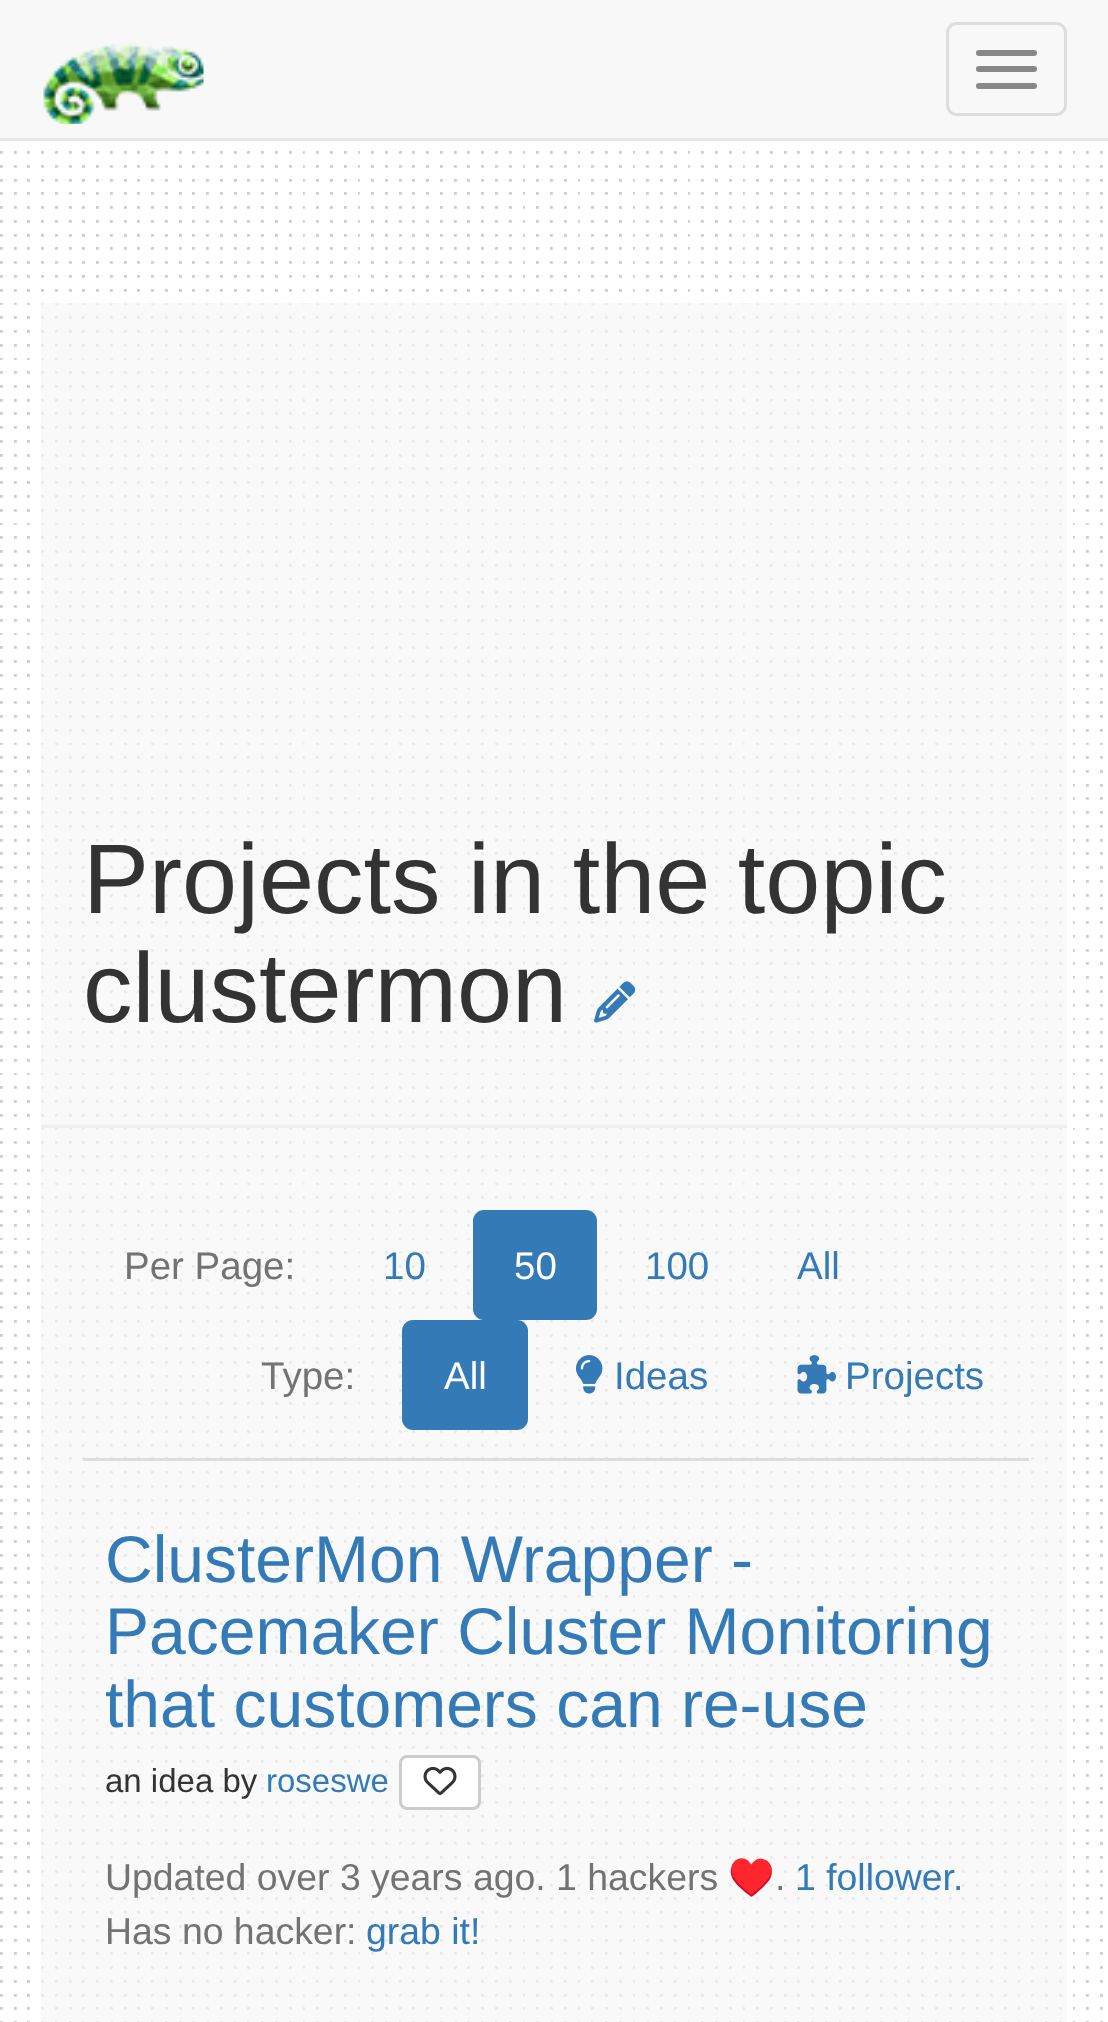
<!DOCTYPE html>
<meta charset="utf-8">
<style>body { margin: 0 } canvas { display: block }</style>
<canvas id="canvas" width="1108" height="2022"></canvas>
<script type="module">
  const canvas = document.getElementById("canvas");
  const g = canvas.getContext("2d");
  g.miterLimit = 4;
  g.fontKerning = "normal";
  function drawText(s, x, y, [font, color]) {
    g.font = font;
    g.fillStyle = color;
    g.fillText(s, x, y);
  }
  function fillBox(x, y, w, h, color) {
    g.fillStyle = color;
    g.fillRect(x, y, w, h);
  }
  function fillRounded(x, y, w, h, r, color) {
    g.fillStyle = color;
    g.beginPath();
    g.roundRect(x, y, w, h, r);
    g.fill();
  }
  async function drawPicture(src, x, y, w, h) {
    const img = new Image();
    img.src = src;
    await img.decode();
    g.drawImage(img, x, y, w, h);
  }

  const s1 = ["99px Liberation Sans", "#333333"];
  const s2 = ["38.5px Liberation Sans", "#737373"];
  const s3 = ["38.5px Liberation Sans", "#337AB7"];
  const s4 = ["38.5px Liberation Sans", "#FFFFFF"];
  const s5 = ["66px Liberation Sans", "#337AB7"];
  const s6 = ["33px Liberation Sans", "#333333"];
  const s7 = ["33px Liberation Sans", "#337AB7"];
  const s8 = ["37.4px Liberation Sans", "#737373"];
  const s9 = ["37.4px Noto Color Emoji", "#737373"];
  const s10 = ["37.4px Liberation Sans", "#337AB7"];

  fillBox(0, 0, 1108, 2022, "#FFFFFF");
  await drawPicture("pic1.png", 0, 141, 1103, 1881);
  fillBox(0, 0, 1108, 138, "#F8F8F8");
  fillBox(0, 138, 1108, 3, "#E7E7E7");
  await drawPicture("pic2.png", 43, 43, 161, 81);
  g.beginPath();
  g.roundRect(947.5, 23.5, 118, 91, 9.5);
  g.strokeStyle = "#DDDDDD";
  g.lineWidth = 3;
  g.stroke();
  fillRounded(976, 50, 61, 6, 3, "#888888");
  fillRounded(976, 66, 61, 6, 3, "#888888");
  fillRounded(976, 83, 61, 6, 3, "#888888");
  fillBox(41, 303, 1026, 1719, "rgba(246, 246, 246, 0.7)");
  drawText("Projects in the topic", 83, 913, s1);
  drawText("clustermon", 83, 1022, s1);
  await drawPicture("pic3.png", 594, 981, 42, 42);
  fillBox(41, 1125, 1026, 3, "#EEEEEE");
  drawText("Per Page:", 124, 1279, s2);
  drawText("10", 383, 1279, s3);
  fillRounded(473, 1210, 124, 110, 11, "#337AB7");
  drawText("50", 514, 1279, s4);
  drawText("100", 645, 1279, s3);
  drawText("All", 797, 1279, s3);
  drawText("Type:", 261, 1389, s2);
  fillRounded(402, 1320, 126, 110, 11, "#337AB7");
  drawText("All", 444, 1389, s4);
  await drawPicture("pic4.png", 575, 1355, 28, 39);
  drawText("Ideas", 614, 1389, s3);
  await drawPicture("pic5.png", 797, 1355, 39, 39);
  drawText("Projects", 845, 1389, s3);
  fillBox(83, 1458, 946, 3, "#DDDDDD");
  drawText("ClusterMon Wrapper -", 105, 1582, s5);
  drawText("Pacemaker Cluster Monitoring", 105, 1654, s5);
  drawText("that customers can re-use", 105, 1727, s5);
  drawText("an idea by", 105, 1792, s6);
  drawText("roseswe", 266, 1792, s7);
  g.fillStyle = "#FFFFFF";
  g.beginPath();
  g.roundRect(400.5, 1756.5, 79, 52, 6.5);
  g.fill();
  g.strokeStyle = "#CCCCCC";
  g.stroke();
  await drawPicture("pic6.png", 423, 1766, 34, 29);
  drawText("Updated over 3 years ago. 1 hackers", 105, 1890, s8);
  drawText("♥️", 728, 1890, s9);
  drawText(".", 775, 1890, s8);
  drawText("1 follower.", 795, 1890, s10);
  drawText("Has no hacker:", 105, 1944, s8);
  drawText("grab it!", 366, 1944, s10);
</script>
